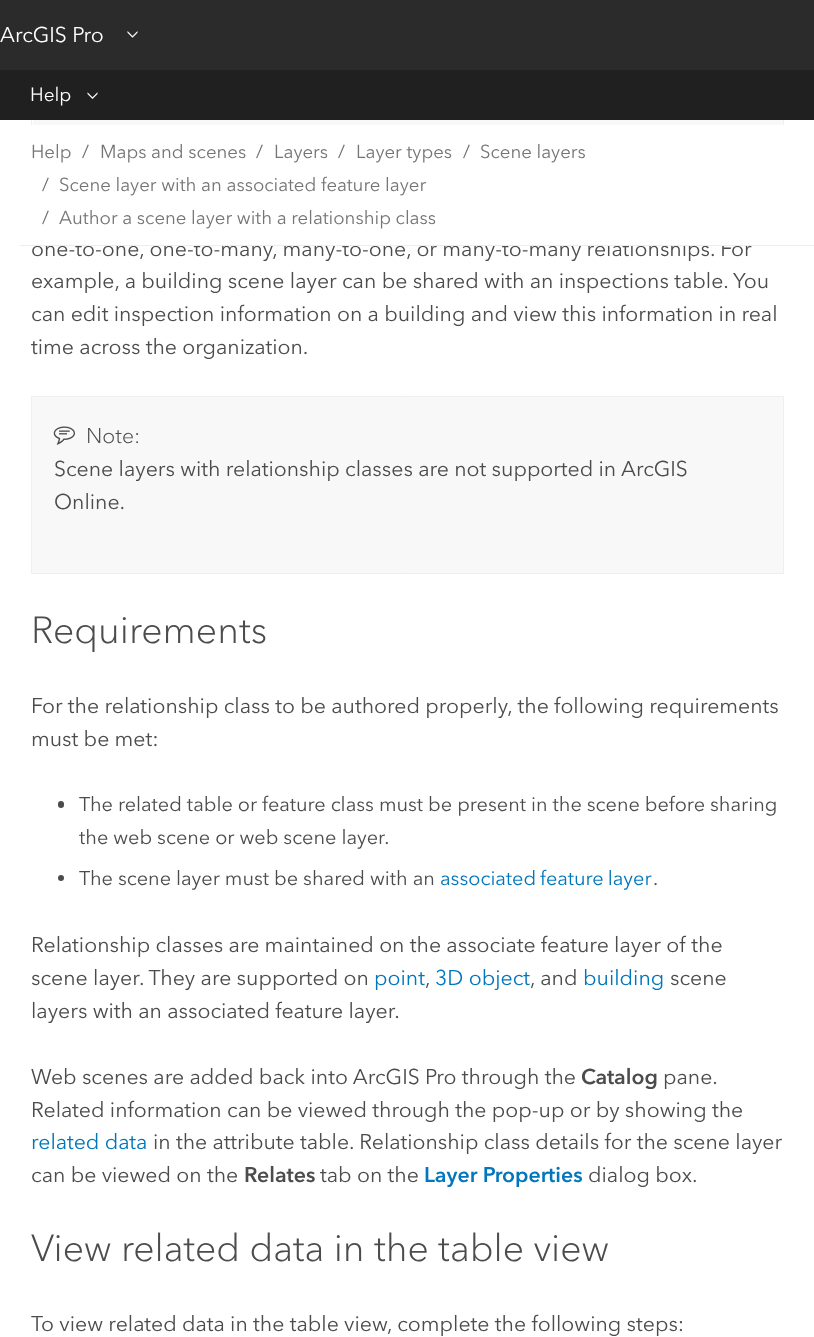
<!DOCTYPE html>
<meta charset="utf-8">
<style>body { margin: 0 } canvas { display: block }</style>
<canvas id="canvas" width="814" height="1337"></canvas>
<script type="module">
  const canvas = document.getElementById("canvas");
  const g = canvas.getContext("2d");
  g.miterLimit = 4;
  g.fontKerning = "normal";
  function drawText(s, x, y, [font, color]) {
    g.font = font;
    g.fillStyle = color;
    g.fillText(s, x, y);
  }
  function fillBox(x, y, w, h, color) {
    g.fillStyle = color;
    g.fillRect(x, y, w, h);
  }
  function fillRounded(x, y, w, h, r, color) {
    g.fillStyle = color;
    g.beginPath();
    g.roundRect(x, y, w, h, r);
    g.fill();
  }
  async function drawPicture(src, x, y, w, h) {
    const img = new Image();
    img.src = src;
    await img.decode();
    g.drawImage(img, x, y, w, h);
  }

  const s1 = ["21.25px Avenir Next", "#FFFFFF"];
  const s2 = ["19px Avenir Next", "#FFFFFF"];
  const s3 = ["21.25px Avenir Next", "#4C4C4C"];
  const s4 = ["18.6px Avenir Next", "#757575"];
  const s5 = ["18.6px Avenir Next", "#6E6E6E"];
  const s6 = ["300 21.25px Avenir Next", "#4C4C4C"];
  const s7 = ["300 37.6px Avenir Next", "#4C4C4C"];
  const s8 = ["19.9px Avenir Next", "#4C4C4C"];
  const s9 = ["19.9px Avenir Next", "#0076BC"];
  const s10 = ["21.25px Avenir Next", "#0076BC"];
  const s11 = ["bold 21.25px Avenir Next", "#4C4C4C"];
  const s12 = ["bold 21.25px Avenir Next", "#0076BC"];

  fillBox(0, 0, 814, 1337, "#FFFFFF");
  fillBox(0, 0, 814, 70, "#2B2B2B");
  drawText("ArcGIS Pro", 0, 42, s1);
  await drawPicture("pic1.png", 127, 31, 11, 7);
  fillBox(0, 70, 814, 50, "#202020");
  drawText("Help", 30, 101, s2);
  await drawPicture("pic2.png", 87, 92, 11, 7);
  fillBox(783, 120, 1, 13, "#EFEFEF");
  fillBox(31, 120, 1, 13, "#EFEFEF");
  drawText("one-to-one, one-to-many, many-to-one, or many-to-many relationships. For", 31, 256, s3);
  fillBox(31, 125, 753, 120, "#FFFFFF");
  fillBox(20, 245, 794, 1, "#EDEDED");
  drawText("Help", 31, 158, s4);
  drawText("/", 82, 158, s5);
  drawText("Maps and scenes", 100, 158, s4);
  drawText("/", 256, 158, s5);
  drawText("Layers", 274, 158, s4);
  drawText("/", 338, 158, s5);
  drawText("Layer types", 356, 158, s4);
  drawText("/", 463, 158, s5);
  drawText("Scene layers", 480, 158, s4);
  drawText("/", 42, 191, s5);
  drawText("Scene layer with an associated feature layer", 59, 191, s4);
  drawText("/", 42, 224, s5);
  drawText("Author a scene layer with a relationship class", 59, 224, s4);
  fillBox(33, 120, 750, 5, "#F8F8F8");
  drawText("example, a building scene layer can be shared with an inspections table. You", 31, 288, s3);
  drawText("can edit inspection information on a building and view this information in real", 31, 321, s3);
  drawText("time across the organization.", 31, 354, s3);
  g.fillStyle = "#F8F8F8";
  g.beginPath();
  g.rect(31.5, 396.5, 752, 177);
  g.fill();
  g.strokeStyle = "#EFEFEF";
  g.stroke();
  await drawPicture("pic3.png", 53, 426, 22, 19);
  drawText("Note:", 86, 443, s6);
  drawText("Scene layers with relationship classes are not supported in", 54, 476, s3);
  drawText("ArcGIS", 621, 476, s3);
  drawText("Online.", 54, 509, s3);
  drawText("Requirements", 31, 643, s7);
  drawText("For the relationship class to be authored properly, the following requirements", 31, 713, s3);
  drawText("must be met:", 31, 746, s3);
  fillRounded(58, 801, 6, 7, 3, "#4C4C4C");
  drawText("The related table or feature class must be present in the scene before sharing", 79, 811, s8);
  drawText("the web scene or web scene layer.", 79, 844, s8);
  g.beginPath();
  g.arc(61, 878, 3, 0, Math.PI * 2);
  g.fill();
  drawText("The scene layer must be shared with an", 79, 885, s8);
  g.wordSpacing = "-1px";
  drawText("associated feature layer", 440, 885, s9);
  g.wordSpacing = "0px";
  drawText(".", 653, 885, s8);
  drawText("Relationship classes are maintained on the associate feature layer of the", 31, 952, s3);
  drawText("scene layer. They are supported on", 31, 985, s3);
  drawText("point", 374, 985, s10);
  drawText(",", 425, 985, s3);
  drawText("3D object", 435, 985, s10);
  drawText(", and", 530, 985, s3);
  drawText("building", 583, 985, s10);
  drawText("scene", 670, 985, s3);
  drawText("layers with an associated feature layer.", 31, 1018, s3);
  drawText("Web scenes are added back into ArcGIS Pro through the", 31, 1084, s3);
  drawText("Catalog", 581, 1084, s11);
  drawText("pane.", 663, 1084, s3);
  drawText("Related information can be viewed through the pop-up or by showing the", 31, 1117, s3);
  drawText("related data", 31, 1149, s10);
  drawText("in the attribute table. Relationship class details for the scene layer", 153, 1149, s3);
  drawText("can be viewed on the", 31, 1182, s3);
  drawText("Relates", 244, 1182, s11);
  drawText("tab on the", 320, 1182, s3);
  drawText("Layer Properties", 424, 1182, s12);
  drawText("dialog box.", 588, 1182, s3);
  drawText("View related data in the table view", 31, 1261, s7);
  drawText("To view related data in the table view, complete the following steps:", 31, 1331, s3);
</script>
